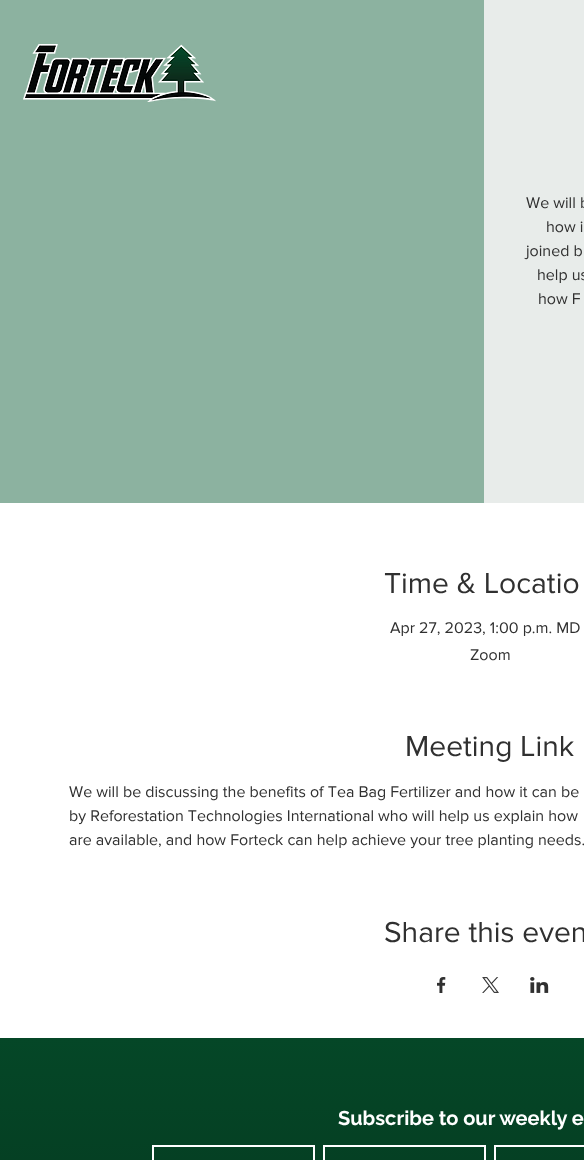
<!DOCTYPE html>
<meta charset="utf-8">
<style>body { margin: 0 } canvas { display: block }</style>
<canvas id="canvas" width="584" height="1160"></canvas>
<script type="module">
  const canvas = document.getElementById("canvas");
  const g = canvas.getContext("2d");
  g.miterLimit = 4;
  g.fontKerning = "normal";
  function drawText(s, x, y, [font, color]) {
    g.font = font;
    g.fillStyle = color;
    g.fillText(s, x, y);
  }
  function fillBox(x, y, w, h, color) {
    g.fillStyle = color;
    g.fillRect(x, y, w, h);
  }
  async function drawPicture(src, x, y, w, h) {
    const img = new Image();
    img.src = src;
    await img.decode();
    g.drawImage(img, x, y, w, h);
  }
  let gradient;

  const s1 = ["16px 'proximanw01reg'", "#303030"];
  const s2 = ["30px 'proximanw01reg'", "#303030"];
  const s3 = ["bold 20px Raleway", "#FFFFFF"];

  fillBox(0, 0, 584, 1160, "#FFFFFF");
  fillBox(0, 0, 484, 503, "#8CB2A0");
  await drawPicture("pic1.png", 23, 44, 193, 58);
  fillBox(484, 0, 100, 503, "#E8ECEA");
  drawText("We will b", 526, 208, s1);
  drawText("how i", 546, 232, s1);
  drawText("joined b", 526, 256, s1);
  drawText("help us", 537, 280, s1);
  drawText("how F", 538, 304, s1);
  drawText("Time & Locatio", 384, 593, s2);
  drawText("Apr 27, 2023, 1:00 p.m. MD", 390, 633, s1);
  drawText("Zoom", 470, 660, s1);
  drawText("Meeting Link", 405, 756, s2);
  drawText("We will be discussing the benefits of Tea Bag Fertilizer and how it can be", 69, 797, s1);
  drawText("by Reforestation Technologies International who will help us explain how", 69, 821, s1);
  drawText("are available, and how Forteck can help achieve your tree planting needs.", 69, 845, s1);
  drawText("Share this even", 384, 942, s2);
  await drawPicture("pic2.png", 437, 977, 9, 16);
  await drawPicture("pic3.png", 482, 977, 17, 16);
  await drawPicture("pic4.png", 530, 977, 19, 16);
  gradient = g.createLinearGradient(490, 1038, 490, 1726);
  gradient.addColorStop(0, "#054727");
  gradient.addColorStop(1, "#051F12");
  g.fillStyle = gradient;
  g.fillRect(0, 1038, 584, 122);
  drawText("Subscribe to our weekly e", 338, 1125, s3);
  g.strokeStyle = "#FFFFFF";
  g.lineWidth = 2;
  g.strokeRect(153, 1146, 161, 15);
  g.strokeRect(324, 1146, 161, 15);
  g.strokeRect(495, 1146, 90, 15);
</script>
